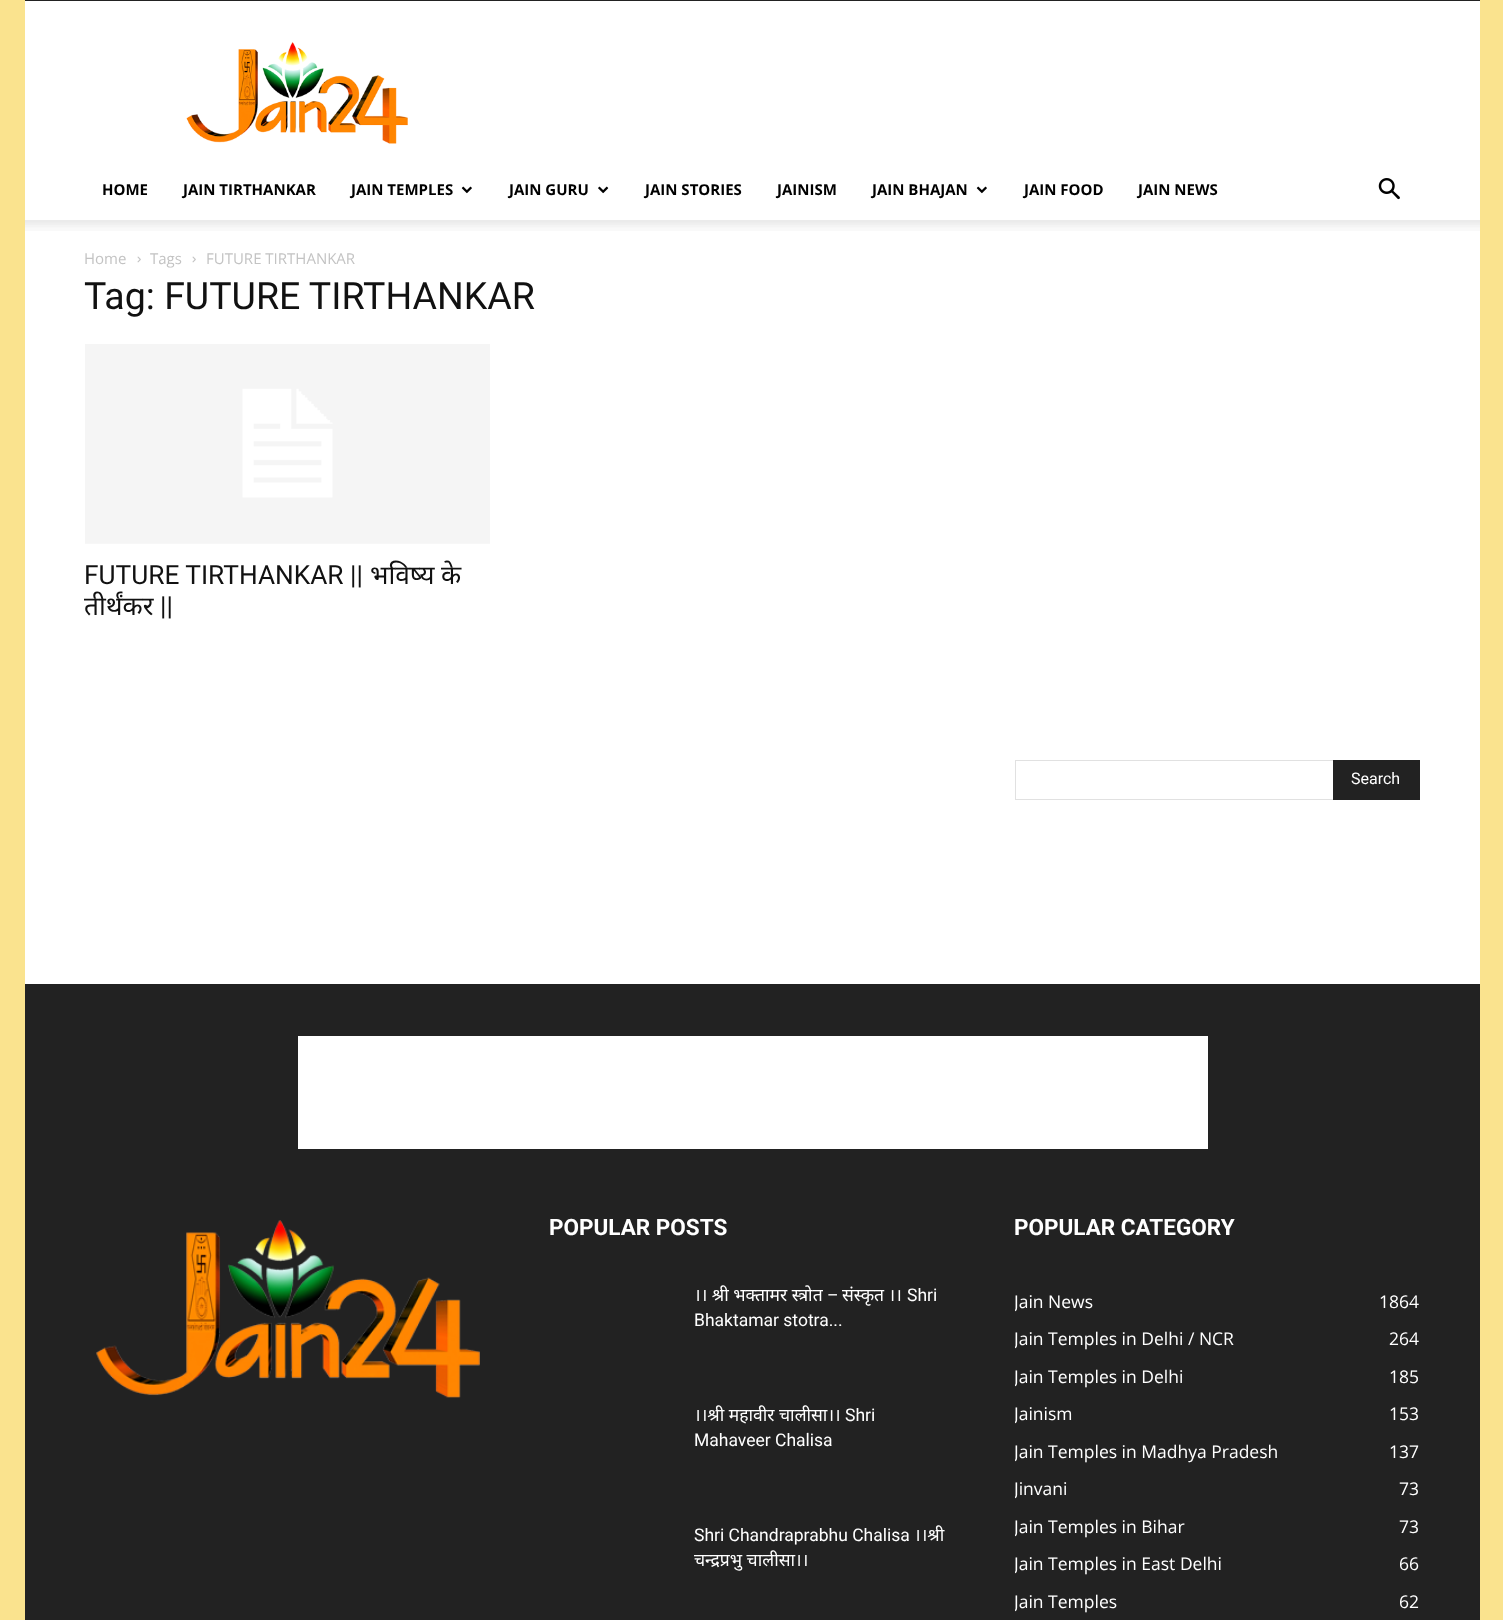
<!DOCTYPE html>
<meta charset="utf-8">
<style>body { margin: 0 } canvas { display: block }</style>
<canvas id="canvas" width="1503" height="1620"></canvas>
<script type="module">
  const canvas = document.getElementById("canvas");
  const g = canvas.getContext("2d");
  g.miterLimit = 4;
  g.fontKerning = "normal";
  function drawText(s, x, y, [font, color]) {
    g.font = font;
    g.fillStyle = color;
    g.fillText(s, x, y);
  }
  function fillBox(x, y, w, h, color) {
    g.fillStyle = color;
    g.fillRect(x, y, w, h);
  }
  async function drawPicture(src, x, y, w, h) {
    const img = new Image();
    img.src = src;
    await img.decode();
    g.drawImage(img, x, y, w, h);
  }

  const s1 = ["bold 15px Open Sans", "#000000"];
  const s2 = ["15px Open Sans", "#C3C3C3"];
  const s3 = ["37.5px Roboto", "#111111"];
  const s4 = ["26.25px Roboto", "#111111"];
  const s5 = ["26.25px Noto Sans", "#111111"];
  const s6 = ["16px Roboto", "#FFFFFF"];
  const s7 = ["bold 22.5px Roboto", "#FFFFFF"];
  const s8 = ["17.5px Noto Sans", "#FFFFFF"];
  const s9 = ["17.5px Roboto", "#FFFFFF"];
  const s10 = ["17.5px Open Sans", "#FFFFFF"];

  fillBox(0, 0, 1503, 1620, "#FAE38E");
  fillBox(25, 0, 1455, 1, "#222222");
  fillBox(25, 1, 1455, 219, "#FFFFFF");
  await drawPicture("pic1.png", 186, 42, 222, 102);
  drawText("HOME", 102, 195, s1);
  drawText("JAIN TIRTHANKAR", 183, 195, s1);
  drawText("JAIN TEMPLES", 351, 195, s1);
  await drawPicture("pic2.png", 461, 186, 11, 8);
  drawText("JAIN GURU", 509, 195, s1);
  await drawPicture("pic3.png", 598, 186, 11, 8);
  drawText("JAIN STORIES", 645, 195, s1);
  drawText("JAINISM", 777, 195, s1);
  drawText("JAIN BHAJAN", 872, 195, s1);
  await drawPicture("pic2.png", 976, 186, 11, 8);
  drawText("JAIN FOOD", 1024, 195, s1);
  drawText("JAIN NEWS", 1138, 195, s1);
  await drawPicture("pic4.png", 1378, 178, 22, 22);
  fillBox(25, 220, 1455, 764, "#FFFFFF");
  await drawPicture("pic5.png", 25, 220, 1455, 11);
  drawText("Home", 84, 264, s2);
  await drawPicture("pic6.png", 137, 256, 4, 7);
  drawText("Tags", 150, 264, s2);
  await drawPicture("pic6.png", 192, 256, 4, 7);
  drawText("FUTURE TIRTHANKAR", 206, 264, s2);
  drawText("Tag: FUTURE TIRTHANKAR", 84, 309, s3);
  await drawPicture("pic7.png", 85, 344, 405, 200);
  drawText("FUTURE TIRTHANKAR ||", 84, 584, s4);
  drawText("भविष्य", 370, 584, s5);
  drawText("के", 441, 584, s5);
  drawText("तीर्थंकर", 84, 615, s5);
  drawText("||", 160, 615, s4);
  fillBox(1015, 760, 318, 1, "#E1E1E1");
  fillBox(1015, 799, 318, 1, "#E1E1E1");
  fillBox(1015, 760, 1, 40, "#E1E1E1");
  fillBox(1333, 760, 87, 40, "#222222");
  drawText("Search", 1351, 784, s6);
  fillBox(25, 984, 1455, 636, "#222222");
  fillBox(298, 1036, 910, 113, "#FFFFFF");
  await drawPicture("pic8.png", 96, 1220, 384, 178);
  drawText("POPULAR POSTS", 549, 1235, s7);
  drawText("।। श्री भक्तामर स्त्रोत", 694, 1301, s8);
  drawText("–", 827, 1301, s9);
  drawText("संस्कृत ।।", 842, 1301, s8);
  drawText("Shri", 907, 1301, s9);
  drawText("Bhaktamar stotra...", 694, 1326, s9);
  drawText("।।श्री महावीर चालीसा।।", 694, 1421, s8);
  drawText("Shri", 845, 1421, s9);
  drawText("Mahaveer Chalisa", 694, 1446, s9);
  drawText("Shri Chandraprabhu Chalisa", 694, 1541, s9);
  drawText("।।श्री", 914, 1541, s8);
  drawText("चन्द्रप्रभु चालीसा।।", 694, 1566, s8);
  drawText("POPULAR CATEGORY", 1014, 1235, s7);
  g.save();
  g.beginPath();
  g.rect(1015, 1206, 405, 414);
  g.clip();
  drawText("Jain News", 1014, 1308, s10);
  g.restore();
  drawText("1864", 1379, 1308, s10);
  g.save();
  g.beginPath();
  g.rect(1015, 1206, 405, 414);
  g.clip();
  drawText("Jain Temples in Delhi / NCR", 1014, 1345, s10);
  g.restore();
  drawText("264", 1389, 1345, s10);
  g.save();
  g.beginPath();
  g.rect(1015, 1206, 405, 414);
  g.clip();
  drawText("Jain Temples in Delhi", 1014, 1383, s10);
  g.restore();
  drawText("185", 1389, 1383, s10);
  g.save();
  g.beginPath();
  g.rect(1015, 1206, 405, 414);
  g.clip();
  drawText("Jainism", 1014, 1420, s10);
  g.restore();
  drawText("153", 1389, 1420, s10);
  g.save();
  g.beginPath();
  g.rect(1015, 1206, 405, 414);
  g.clip();
  drawText("Jain Temples in Madhya Pradesh", 1014, 1458, s10);
  g.restore();
  drawText("137", 1389, 1458, s10);
  g.save();
  g.beginPath();
  g.rect(1015, 1206, 405, 414);
  g.clip();
  drawText("Jinvani", 1014, 1495, s10);
  g.restore();
  drawText("73", 1399, 1495, s10);
  g.save();
  g.beginPath();
  g.rect(1015, 1206, 405, 414);
  g.clip();
  drawText("Jain Temples in Bihar", 1014, 1533, s10);
  g.restore();
  drawText("73", 1399, 1533, s10);
  g.save();
  g.beginPath();
  g.rect(1015, 1206, 405, 414);
  g.clip();
  drawText("Jain Temples in East Delhi", 1014, 1570, s10);
  g.restore();
  drawText("66", 1399, 1570, s10);
  g.save();
  g.beginPath();
  g.rect(1015, 1206, 405, 414);
  g.clip();
  drawText("Jain Temples", 1014, 1608, s10);
  g.restore();
  drawText("62", 1399, 1608, s10);
</script>
